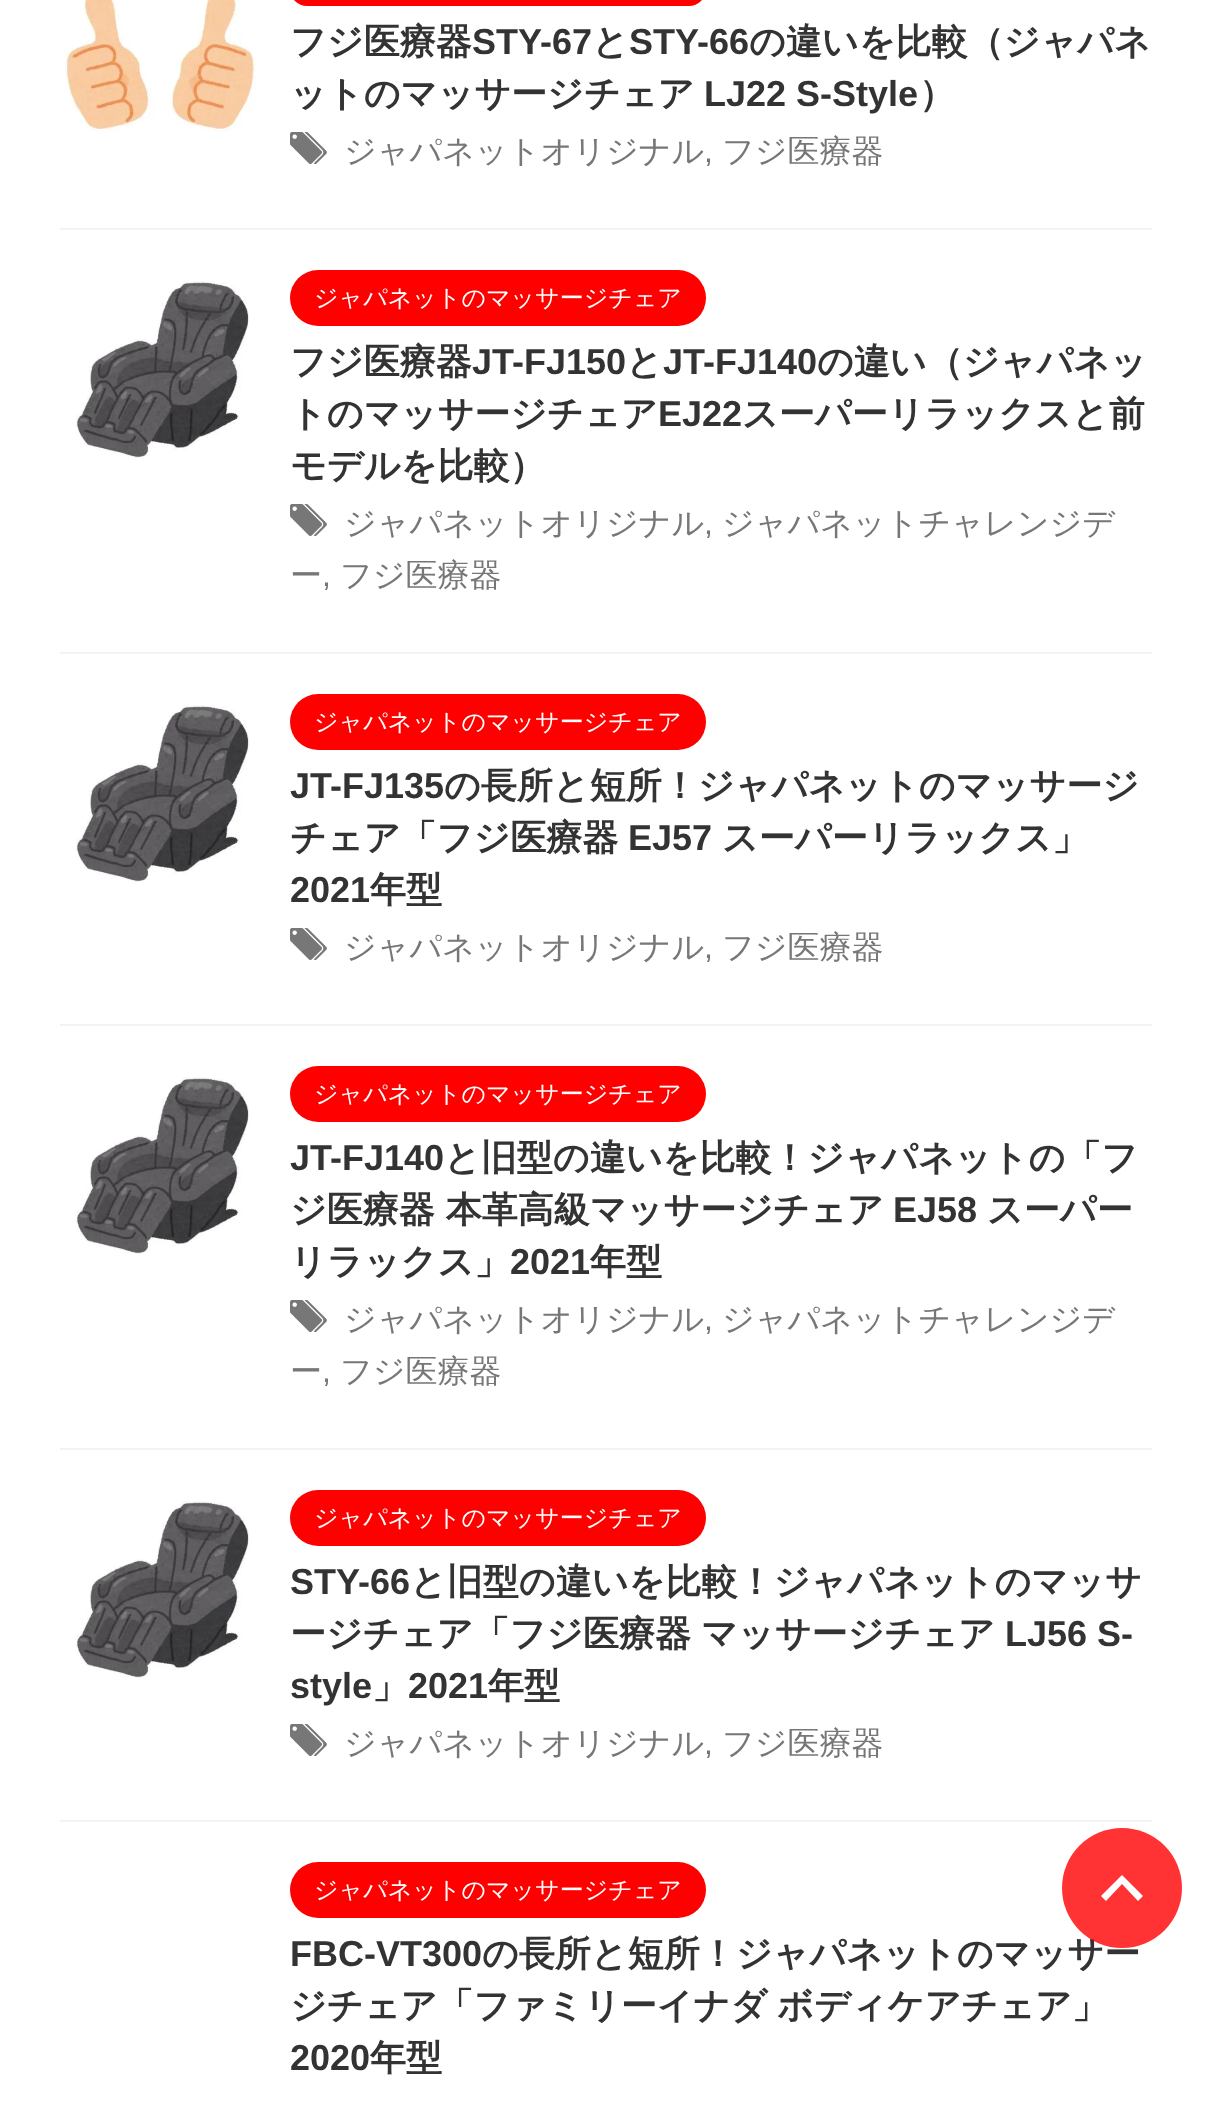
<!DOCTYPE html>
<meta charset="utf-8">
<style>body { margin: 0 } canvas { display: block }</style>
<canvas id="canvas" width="1211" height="2107"></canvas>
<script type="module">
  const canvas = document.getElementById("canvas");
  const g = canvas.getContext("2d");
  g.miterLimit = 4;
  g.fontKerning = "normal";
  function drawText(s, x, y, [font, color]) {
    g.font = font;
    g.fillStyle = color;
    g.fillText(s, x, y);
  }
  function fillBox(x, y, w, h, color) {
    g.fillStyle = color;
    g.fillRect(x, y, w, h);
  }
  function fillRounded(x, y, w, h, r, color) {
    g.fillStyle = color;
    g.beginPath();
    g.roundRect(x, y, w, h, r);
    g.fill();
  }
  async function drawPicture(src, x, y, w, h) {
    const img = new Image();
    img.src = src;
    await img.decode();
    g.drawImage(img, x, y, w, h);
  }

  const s1 = ["bold 36px WenQuanYi Zen Hei", "#333333"];
  const s2 = ["bold 36px Liberation Sans", "#333333"];
  const s3 = ["500 32px WenQuanYi Zen Hei", "#777777"];
  const s4 = ["32px Liberation Sans", "#777777"];
  const s5 = ["500 24px WenQuanYi Zen Hei", "#FFFFFF"];

  fillBox(0, 0, 1211, 2107, "#FFFFFF");
  fillBox(60, 228, 1092, 2, "#F3F3F3");
  await drawPicture("pic1.png", 65, 0, 192, 132);
  fillRounded(290, -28, 416, 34, 28, "#FF0000");
  drawText("フジ医療器", 290, 54, s1);
  drawText("STY-67", 472, 54, s2);
  drawText("と", 592, 54, s1);
  drawText("STY-66", 629, 54, s2);
  drawText("の違いを比較（ジャパネ", 749, 54, s1);
  drawText("ットのマッサージチェア", 290, 106, s1);
  drawText("LJ22 S-Style", 704, 106, s2);
  drawText("）", 919, 106, s1);
  await drawPicture("pic2.png", 290, 132, 37, 32);
  drawText("ジャパネットオリジナル", 344, 162, s3);
  drawText(",", 704, 162, s4);
  drawText("フジ医療器", 722, 162, s3);
  fillBox(60, 652, 1092, 2, "#F3F3F3");
  await drawPicture("pic3.png", 76, 281, 173, 177);
  fillRounded(290, 270, 416, 56, 28, "#FF0000");
  drawText("ジャパネットのマッサージチェア", 314, 306, s5);
  drawText("フジ医療器", 290, 374, s1);
  drawText("JT-FJ150", 472, 374, s2);
  drawText("と", 626, 374, s1);
  drawText("JT-FJ140", 663, 374, s2);
  drawText("の違い（ジャパネッ", 817, 374, s1);
  drawText("トのマッサージチェア", 290, 426, s1);
  drawText("EJ22", 658, 426, s2);
  drawText("スーパーリラックスと前", 742, 426, s1);
  drawText("モデルを比較）", 290, 478, s1);
  await drawPicture("pic2.png", 290, 504, 37, 32);
  drawText("ジャパネットオリジナル", 344, 534, s3);
  drawText(",", 704, 534, s4);
  drawText("ジャパネットチャレンジデ", 722, 534, s3);
  drawText("ー", 290, 586, s3);
  drawText("フジ医療器", 340, 586, s3);
  drawText(",", 322, 586, s4);
  fillBox(60, 1024, 1092, 2, "#F3F3F3");
  await drawPicture("pic3.png", 76, 705, 173, 177);
  fillRounded(290, 694, 416, 56, 28, "#FF0000");
  drawText("ジャパネットのマッサージチェア", 314, 730, s5);
  drawText("JT-FJ135", 290, 798, s2);
  drawText("の長所と短所！ジャパネットのマッサージ", 444, 798, s1);
  drawText("チェア「フジ医療器", 290, 850, s1);
  drawText("EJ57", 628, 850, s2);
  drawText("スーパーリラックス」", 722, 850, s1);
  drawText("2021", 290, 902, s2);
  drawText("年型", 370, 902, s1);
  await drawPicture("pic2.png", 290, 928, 37, 32);
  drawText("ジャパネットオリジナル", 344, 958, s3);
  drawText(",", 704, 958, s4);
  drawText("フジ医療器", 722, 958, s3);
  fillBox(60, 1448, 1092, 2, "#F3F3F3");
  await drawPicture("pic3.png", 76, 1077, 173, 177);
  fillRounded(290, 1066, 416, 56, 28, "#FF0000");
  drawText("ジャパネットのマッサージチェア", 314, 1102, s5);
  drawText("JT-FJ140", 290, 1170, s2);
  drawText("と旧型の違いを比較！ジャパネットの「フ", 444, 1170, s1);
  drawText("ジ医療器 本革高級マッサージチェア", 290, 1222, s1);
  drawText("EJ58", 893, 1222, s2);
  drawText("スーパー", 987, 1222, s1);
  drawText("リラックス」", 290, 1274, s1);
  drawText("2021", 510, 1274, s2);
  drawText("年型", 590, 1274, s1);
  await drawPicture("pic2.png", 290, 1300, 37, 32);
  drawText("ジャパネットオリジナル", 344, 1330, s3);
  drawText(",", 704, 1330, s4);
  drawText("ジャパネットチャレンジデ", 722, 1330, s3);
  drawText("ー", 290, 1382, s3);
  drawText("フジ医療器", 340, 1382, s3);
  drawText(",", 322, 1382, s4);
  fillBox(60, 1820, 1092, 2, "#F3F3F3");
  await drawPicture("pic3.png", 76, 1501, 173, 177);
  fillRounded(290, 1490, 416, 56, 28, "#FF0000");
  drawText("ジャパネットのマッサージチェア", 314, 1526, s5);
  drawText("STY-66", 290, 1594, s2);
  drawText("と旧型の違いを比較！ジャパネットのマッサ", 410, 1594, s1);
  drawText("ージチェア「フジ医療器", 290, 1646, s1);
  drawText("マッサージチェア", 701, 1646, s1);
  drawText("LJ56 S-", 1005, 1646, s2);
  drawText("style", 290, 1698, s2);
  drawText("」", 372, 1698, s1);
  drawText("2021", 408, 1698, s2);
  drawText("年型", 488, 1698, s1);
  await drawPicture("pic2.png", 290, 1724, 37, 32);
  drawText("ジャパネットオリジナル", 344, 1754, s3);
  drawText(",", 704, 1754, s4);
  drawText("フジ医療器", 722, 1754, s3);
  fillRounded(290, 1862, 416, 56, 28, "#FF0000");
  drawText("ジャパネットのマッサージチェア", 314, 1898, s5);
  drawText("FBC-VT300", 290, 1966, s2);
  drawText("の長所と短所！ジャパネットのマッサー", 482, 1966, s1);
  g.wordSpacing = "-1px";
  drawText("ジチェア「ファミリーイナダ ボディケアチェア」", 290, 2018, s1);
  g.wordSpacing = "0px";
  drawText("2020", 290, 2070, s2);
  drawText("年型", 370, 2070, s1);
  g.fillStyle = "rgba(255, 0, 0, 0.8)";
  g.beginPath();
  g.arc(1122, 1888, 60, 0, Math.PI * 2);
  g.fill();
  g.fillStyle = "#FFFFFF";
  g.beginPath();
  g.moveTo(1122, 1884);
  g.lineTo(1106, 1901);
  g.lineTo(1101, 1896);
  g.lineTo(1122, 1875);
  g.lineTo(1143, 1896);
  g.lineTo(1138, 1901);
  g.closePath();
  g.fill();
</script>
